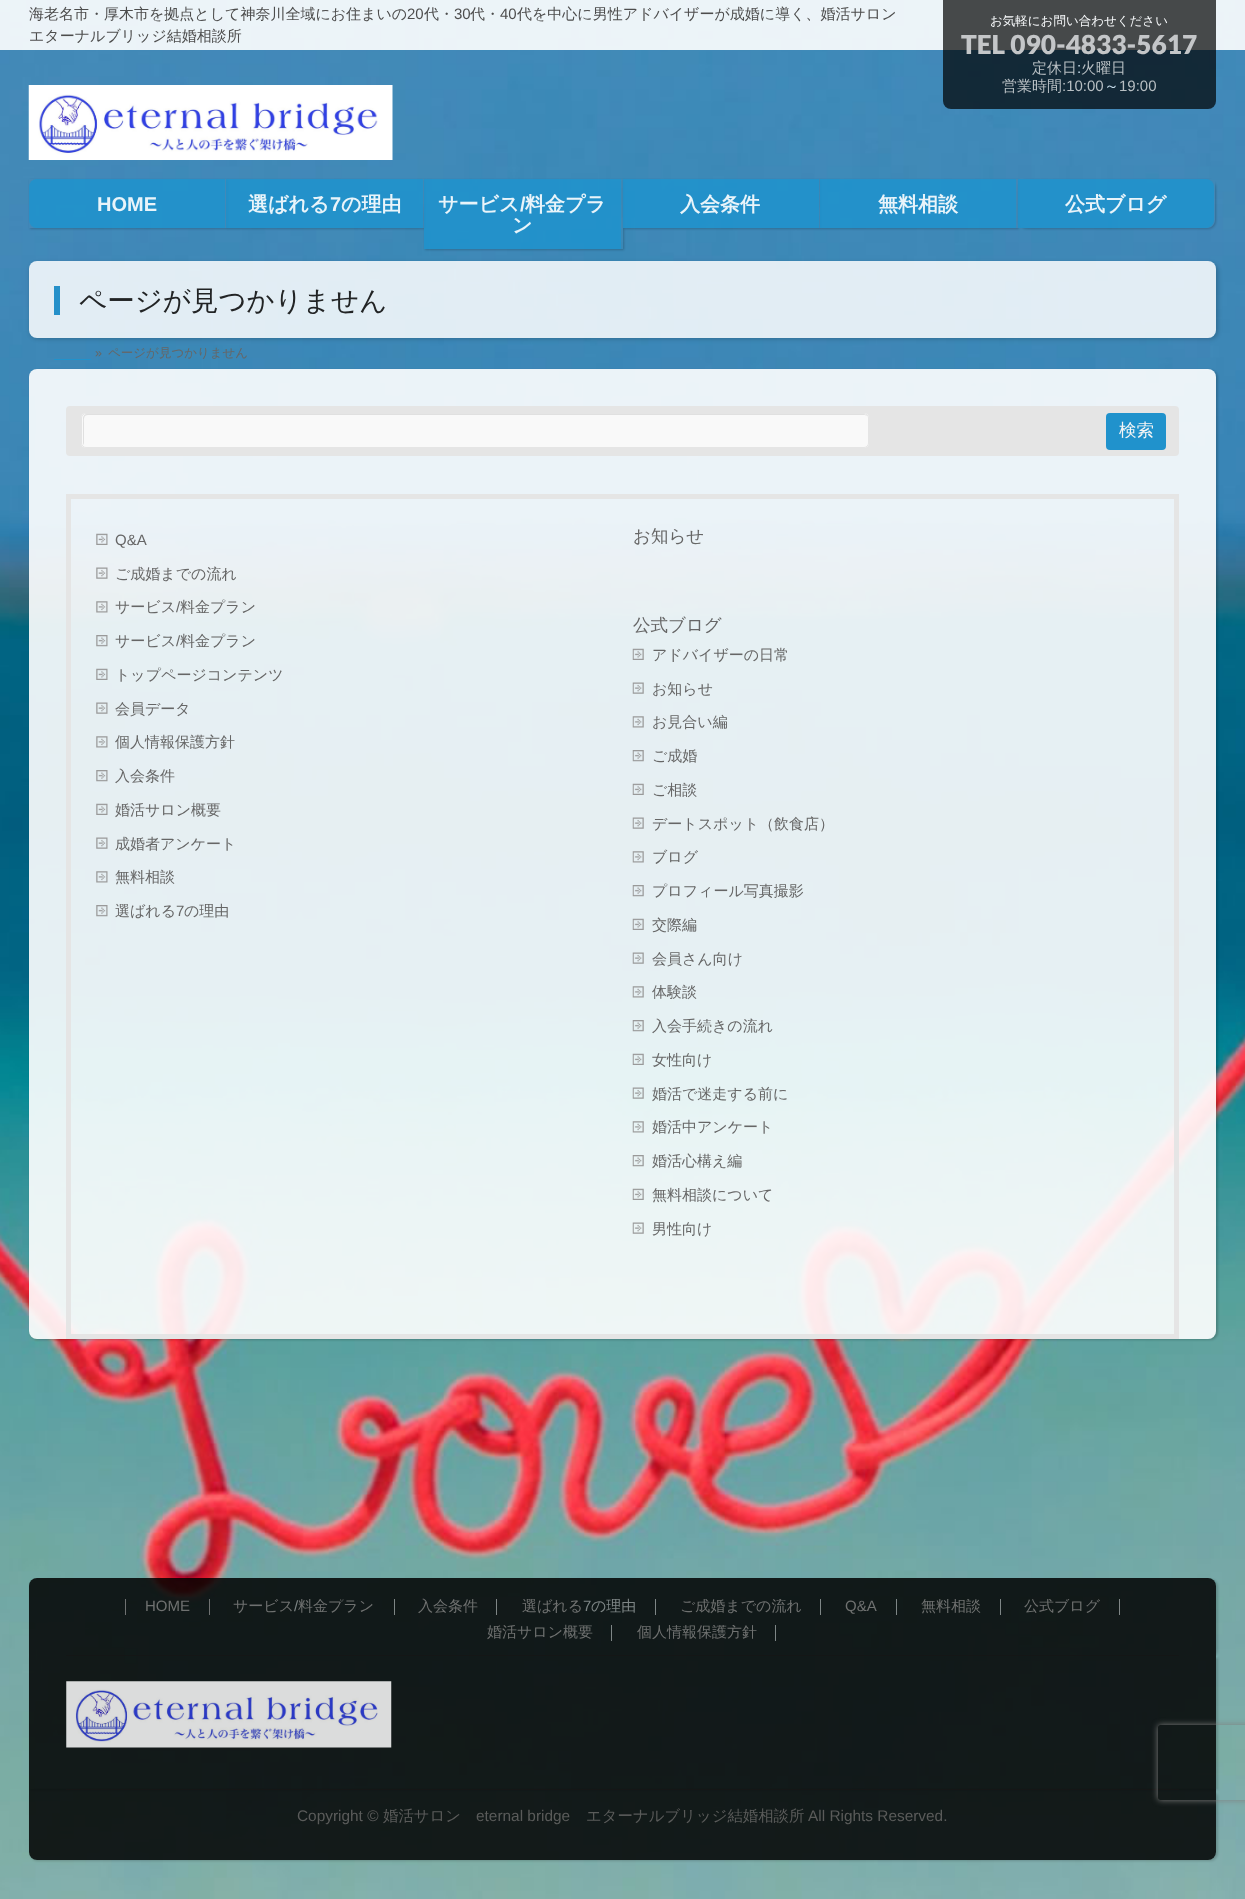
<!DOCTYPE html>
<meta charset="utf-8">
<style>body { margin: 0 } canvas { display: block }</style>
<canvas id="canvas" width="1245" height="1899"></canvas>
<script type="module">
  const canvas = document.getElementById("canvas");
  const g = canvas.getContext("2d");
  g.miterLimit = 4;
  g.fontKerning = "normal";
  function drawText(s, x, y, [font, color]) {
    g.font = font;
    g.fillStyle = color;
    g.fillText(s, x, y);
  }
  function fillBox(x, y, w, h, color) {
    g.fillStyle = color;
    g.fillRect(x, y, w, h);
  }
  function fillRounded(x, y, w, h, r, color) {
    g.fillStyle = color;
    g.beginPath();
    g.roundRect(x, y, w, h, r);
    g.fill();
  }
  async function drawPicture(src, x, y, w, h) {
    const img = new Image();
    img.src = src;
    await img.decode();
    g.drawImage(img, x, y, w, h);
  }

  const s1 = ["500 15px WenQuanYi Zen Hei", "#4D4D4D"];
  const s2 = ["15px Liberation Sans", "#4D4D4D"];
  const s3 = ["500 12.5px WenQuanYi Zen Hei", "#F9FBFD"];
  const s4 = ["900 26.25px Lato", "#C4C6C8"];
  const s5 = ["500 15px WenQuanYi Zen Hei", "#B8BFC3"];
  const s6 = ["15px Liberation Sans", "#C6DCEA"];
  const s7 = ["15px Liberation Sans", "#B8BFC3"];
  const s8 = ["500 15px WenQuanYi Zen Hei", "#C6DCEA"];
  const s9 = ["bold 20px Liberation Sans", "#E9F4FA"];
  const s10 = ["bold 20px WenQuanYi Zen Hei", "#E9F4FA"];
  const s11 = ["500 27.5px WenQuanYi Zen Hei", "#222425"];
  const s12 = ["12.5px Liberation Sans", "#666666"];
  const s13 = ["500 12.5px WenQuanYi Zen Hei", "#666666"];
  const s14 = ["500 17.5px WenQuanYi Zen Hei", "#F5F5F5"];
  const s15 = ["15px Liberation Sans", "#666666"];
  const s16 = ["500 15px WenQuanYi Zen Hei", "#666666"];
  const s17 = ["500 17.5px WenQuanYi Zen Hei", "#666666"];
  const s18 = ["15px Liberation Sans", "#6F7170"];
  const s19 = ["500 15px WenQuanYi Zen Hei", "#6F7170"];
  const s20 = ["15px Liberation Sans", "#7E8686"];
  const s21 = ["500 15px WenQuanYi Zen Hei", "#7E8686"];
  const s22 = ["15.4px Liberation Sans", "#5A5B5A"];
  const s23 = ["500 15.4px WenQuanYi Zen Hei", "#5A5B5A"];

  fillBox(0, 0, 1245, 1899, "#FFFFFF");
  await drawPicture("pic1.png", 0, 0, 1245, 1899);
  fillBox(0, 0, 1245, 50, "rgba(255, 255, 255, 0.9)");
  drawText("海老名市・厚木市を拠点として神奈川全域にお住まいの", 29, 19, s1);
  drawText("20", 407, 19, s2);
  drawText("代・", 424, 19, s1);
  drawText("30", 454, 19, s2);
  drawText("代・", 470, 19, s1);
  drawText("40", 500, 19, s2);
  drawText("代を中心に男性アドバイザーが成婚に導く、婚活サロン", 517, 19, s1);
  drawText("エターナルブリッジ結婚相談所", 29, 41, s1);
  g.fillStyle = "rgba(0, 0, 0, 0.7)";
  g.beginPath();
  g.roundRect(943, 0, 273, 109, [0, 0, 8, 8]);
  g.fill();
  drawText("お気軽にお問い合わせください", 990, 25, s3);
  drawText("TEL 090-4833-5617", 961, 54, s4);
  drawText("定休日", 1032, 73, s5);
  drawText(":", 1077, 73, s6);
  drawText("火曜日", 1081, 73, s5);
  drawText("営業時間", 1002, 91, s5);
  drawText(":10:00", 1062, 91, s7);
  drawText("～", 1104, 91, s8);
  drawText("19:00", 1119, 91, s7);
  await drawPicture("pic2.png", 28, 85, 365, 75);
  g.save();
  g.beginPath();
  g.moveTo(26, 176);
  g.lineTo(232, 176);
  g.lineTo(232, 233);
  g.lineTo(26, 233);
  g.closePath();
  g.moveTo(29, 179);
  g.lineTo(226, 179);
  g.lineTo(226, 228);
  g.lineTo(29, 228);
  g.closePath();
  g.clip("evenodd");
  g.fillStyle = "rgba(0, 0, 0, 0.2)";
  g.filter = "blur(1px)";
  g.beginPath();
  g.rect(30, 180, 198, 49);
  g.fill();
  g.filter = "none";
  g.restore();
  g.fillStyle = "rgba(32, 146, 204, 0.9)";
  g.beginPath();
  g.roundRect(29, 179, 196, 49, [8, 0, 0, 8]);
  g.fill();
  drawText("HOME", 97, 211, s9);
  g.save();
  g.beginPath();
  g.moveTo(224, 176);
  g.lineTo(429, 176);
  g.lineTo(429, 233);
  g.lineTo(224, 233);
  g.closePath();
  g.moveTo(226, 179);
  g.lineTo(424, 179);
  g.lineTo(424, 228);
  g.lineTo(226, 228);
  g.closePath();
  g.clip("evenodd");
  g.fillStyle = "rgba(0, 0, 0, 0.2)";
  g.filter = "blur(1px)";
  g.beginPath();
  g.rect(228, 180, 197, 49);
  g.fill();
  g.filter = "none";
  g.restore();
  fillBox(226, 179, 197, 49, "rgba(32, 146, 204, 0.9)");
  drawText("選ばれる", 248, 211, s10);
  drawText("7", 330, 211, s9);
  drawText("の理由", 341, 211, s10);
  g.save();
  g.beginPath();
  g.moveTo(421, 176);
  g.lineTo(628, 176);
  g.lineTo(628, 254);
  g.lineTo(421, 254);
  g.closePath();
  g.moveTo(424, 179);
  g.lineTo(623, 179);
  g.lineTo(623, 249);
  g.lineTo(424, 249);
  g.closePath();
  g.clip("evenodd");
  g.fillStyle = "rgba(0, 0, 0, 0.2)";
  g.filter = "blur(1px)";
  g.beginPath();
  g.rect(425, 180, 199, 70);
  g.fill();
  g.filter = "none";
  g.restore();
  fillBox(424, 179, 197, 70, "rgba(32, 146, 204, 0.9)");
  drawText("サービス", 438, 211, s10);
  drawText("/", 520, 211, s9);
  drawText("料金プラ", 525, 211, s10);
  drawText("ン", 512, 232, s10);
  g.save();
  g.beginPath();
  g.moveTo(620, 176);
  g.lineTo(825, 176);
  g.lineTo(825, 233);
  g.lineTo(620, 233);
  g.closePath();
  g.moveTo(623, 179);
  g.lineTo(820, 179);
  g.lineTo(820, 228);
  g.lineTo(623, 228);
  g.closePath();
  g.clip("evenodd");
  g.fillStyle = "rgba(0, 0, 0, 0.2)";
  g.filter = "blur(1px)";
  g.beginPath();
  g.rect(624, 180, 197, 49);
  g.fill();
  g.filter = "none";
  g.restore();
  fillBox(623, 179, 196, 49, "rgba(32, 146, 204, 0.9)");
  drawText("入会条件", 680, 211, s10);
  g.save();
  g.beginPath();
  g.moveTo(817, 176);
  g.lineTo(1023, 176);
  g.lineTo(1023, 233);
  g.lineTo(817, 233);
  g.closePath();
  g.moveTo(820, 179);
  g.lineTo(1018, 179);
  g.lineTo(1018, 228);
  g.lineTo(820, 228);
  g.closePath();
  g.clip("evenodd");
  g.fillStyle = "rgba(0, 0, 0, 0.2)";
  g.filter = "blur(1px)";
  g.beginPath();
  g.rect(821, 180, 198, 49);
  g.fill();
  g.filter = "none";
  g.restore();
  fillBox(820, 179, 196, 49, "rgba(32, 146, 204, 0.9)");
  drawText("無料相談", 878, 211, s10);
  g.save();
  g.beginPath();
  g.moveTo(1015, 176);
  g.lineTo(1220, 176);
  g.lineTo(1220, 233);
  g.lineTo(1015, 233);
  g.closePath();
  g.moveTo(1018, 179);
  g.lineTo(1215, 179);
  g.lineTo(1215, 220);
  g.bezierCurveTo(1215, 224.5, 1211.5, 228, 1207, 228);
  g.lineTo(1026, 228);
  g.bezierCurveTo(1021.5, 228, 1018, 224.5, 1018, 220);
  g.closePath();
  g.clip("evenodd");
  g.fillStyle = "rgba(0, 0, 0, 0.2)";
  g.filter = "blur(1px)";
  g.beginPath();
  g.roundRect(1019, 180, 197, 49, 8);
  g.fill();
  g.filter = "none";
  g.restore();
  g.fillStyle = "rgba(32, 146, 204, 0.9)";
  g.beginPath();
  g.roundRect(1018, 179, 196, 49, [0, 8, 8, 0]);
  g.fill();
  drawText("公式ブログ", 1065, 211, s10);
  g.save();
  g.beginPath();
  g.moveTo(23, 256);
  g.lineTo(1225, 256);
  g.lineTo(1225, 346);
  g.lineTo(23, 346);
  g.closePath();
  g.moveTo(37, 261);
  g.lineTo(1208, 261);
  g.bezierCurveTo(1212.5, 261, 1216, 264.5, 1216, 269);
  g.lineTo(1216, 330);
  g.bezierCurveTo(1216, 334.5, 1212.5, 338, 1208, 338);
  g.lineTo(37, 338);
  g.bezierCurveTo(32.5, 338, 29, 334.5, 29, 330);
  g.lineTo(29, 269);
  g.bezierCurveTo(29, 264.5, 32.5, 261, 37, 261);
  g.closePath();
  g.clip("evenodd");
  g.fillStyle = "rgba(0, 0, 0, 0.2)";
  g.filter = "blur(2px)";
  g.beginPath();
  g.roundRect(30, 263, 1188, 76, 8);
  g.fill();
  g.filter = "none";
  g.restore();
  fillRounded(29, 261, 1187, 77, 8, "rgba(255, 255, 255, 0.85)");
  fillBox(54, 286, 6, 29, "#2590C9");
  drawText("ページが見つかりません", 79, 310, s11);
  drawText("»", 95, 357, s12);
  fillBox(54, 359, 37, 1, "#2092CC");
  drawText("ページが見つかりません", 108, 357, s13);
  g.save();
  g.beginPath();
  g.moveTo(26, 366);
  g.lineTo(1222, 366);
  g.lineTo(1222, 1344);
  g.lineTo(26, 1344);
  g.closePath();
  g.moveTo(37, 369);
  g.lineTo(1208, 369);
  g.bezierCurveTo(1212.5, 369, 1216, 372.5, 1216, 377);
  g.lineTo(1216, 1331);
  g.bezierCurveTo(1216, 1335.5, 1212.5, 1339, 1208, 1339);
  g.lineTo(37, 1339);
  g.bezierCurveTo(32.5, 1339, 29, 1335.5, 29, 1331);
  g.lineTo(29, 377);
  g.bezierCurveTo(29, 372.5, 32.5, 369, 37, 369);
  g.closePath();
  g.clip("evenodd");
  g.fillStyle = "rgba(0, 0, 0, 0.2)";
  g.filter = "blur(1px)";
  g.beginPath();
  g.roundRect(30, 370, 1188, 970, 8);
  g.fill();
  g.filter = "none";
  g.restore();
  fillRounded(29, 369, 1187, 970, 8, "rgba(255, 255, 255, 0.9)");
  fillRounded(66, 406, 1113, 50, 4, "#E5E5E5");
  fillRounded(81, 413, 788, 35, 5, "#F9F9F9");
  g.fillStyle = "#E0E0E0";
  g.beginPath();
  g.moveTo(88, 415);
  g.lineTo(865, 415);
  g.lineTo(867, 416);
  g.bezierCurveTo(867, 415, 865, 414, 864, 414);
  g.lineTo(87, 414);
  g.bezierCurveTo(85, 414, 83, 416, 83, 418);
  g.lineTo(83, 442);
  g.bezierCurveTo(83, 443, 83, 444, 84, 445);
  g.lineTo(84, 423);
  g.bezierCurveTo(84, 420, 83, 415, 88, 415);
  g.closePath();
  g.fill();
  g.beginPath();
  g.roundRect(81.5, 413.5, 787, 34, 4.5);
  g.strokeStyle = "#E5E5E5";
  g.stroke();
  fillRounded(1106, 413, 60, 37, 4, "#2092CC");
  drawText("検索", 1119, 436, s14);
  g.lineWidth = 5;
  g.strokeRect(68.5, 496.5, 1108, 840);
  await drawPicture("pic3.png", 96, 533, 12, 12);
  drawText("Q&A", 115, 545, s15);
  await drawPicture("pic4.png", 96, 567, 12, 12);
  drawText("ご成婚までの流れ", 115, 579, s16);
  await drawPicture("pic5.png", 96, 601, 12, 12);
  drawText("サービス", 115, 612, s16);
  drawText("/", 176, 612, s15);
  drawText("料金プラン", 180, 612, s16);
  await drawPicture("pic6.png", 96, 635, 12, 12);
  drawText("サービス", 115, 646, s16);
  drawText("/", 176, 646, s15);
  drawText("料金プラン", 180, 646, s16);
  await drawPicture("pic7.png", 96, 668, 12, 12);
  drawText("トップページコンテンツ", 115, 680, s16);
  await drawPicture("pic8.png", 96, 702, 12, 12);
  drawText("会員データ", 115, 714, s16);
  await drawPicture("pic9.png", 96, 736, 12, 12);
  drawText("個人情報保護方針", 115, 747, s16);
  await drawPicture("pic10.png", 96, 770, 12, 12);
  drawText("入会条件", 115, 781, s16);
  await drawPicture("pic11.png", 96, 803, 12, 12);
  drawText("婚活サロン概要", 115, 815, s16);
  await drawPicture("pic12.png", 96, 837, 12, 12);
  drawText("成婚者アンケート", 115, 849, s16);
  await drawPicture("pic13.png", 96, 871, 12, 12);
  drawText("無料相談", 115, 882, s16);
  await drawPicture("pic14.png", 96, 905, 12, 12);
  drawText("選ばれる", 115, 916, s16);
  drawText("7", 176, 916, s15);
  drawText("の理由", 184, 916, s16);
  drawText("お知らせ", 633, 542, s17);
  drawText("公式ブログ", 633, 631, s17);
  await drawPicture("pic15.png", 632, 648, 12, 12);
  drawText("アドバイザーの日常", 652, 660, s16);
  await drawPicture("pic16.png", 632, 682, 12, 12);
  drawText("お知らせ", 652, 694, s16);
  await drawPicture("pic17.png", 632, 716, 12, 12);
  drawText("お見合い編", 652, 727, s16);
  await drawPicture("pic18.png", 632, 750, 12, 12);
  drawText("ご成婚", 652, 761, s16);
  await drawPicture("pic19.png", 632, 783, 12, 12);
  drawText("ご相談", 652, 795, s16);
  await drawPicture("pic20.png", 632, 817, 12, 12);
  drawText("デートスポット（飲食店）", 652, 829, s16);
  await drawPicture("pic21.png", 632, 851, 12, 12);
  drawText("ブログ", 652, 862, s16);
  await drawPicture("pic22.png", 632, 885, 12, 12);
  drawText("プロフィール写真撮影", 652, 896, s16);
  await drawPicture("pic23.png", 632, 918, 12, 12);
  drawText("交際編", 652, 930, s16);
  await drawPicture("pic24.png", 632, 952, 12, 12);
  drawText("会員さん向け", 652, 964, s16);
  await drawPicture("pic25.png", 632, 986, 12, 12);
  drawText("体験談", 652, 997, s16);
  await drawPicture("pic26.png", 632, 1020, 12, 12);
  drawText("入会手続きの流れ", 652, 1031, s16);
  await drawPicture("pic27.png", 632, 1053, 12, 12);
  drawText("女性向け", 652, 1065, s16);
  await drawPicture("pic28.png", 632, 1087, 12, 12);
  drawText("婚活で迷走する前に", 652, 1099, s16);
  await drawPicture("pic29.png", 632, 1121, 12, 12);
  drawText("婚活中アンケート", 652, 1132, s16);
  await drawPicture("pic30.png", 632, 1155, 12, 12);
  drawText("婚活心構え編", 652, 1166, s16);
  await drawPicture("pic31.png", 632, 1188, 12, 12);
  drawText("無料相談について", 652, 1200, s16);
  await drawPicture("pic32.png", 632, 1222, 12, 12);
  drawText("男性向け", 652, 1234, s16);
  g.save();
  g.beginPath();
  g.moveTo(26, 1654);
  g.lineTo(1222, 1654);
  g.lineTo(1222, 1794);
  g.lineTo(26, 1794);
  g.closePath();
  g.moveTo(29, 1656);
  g.lineTo(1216, 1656);
  g.lineTo(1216, 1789);
  g.lineTo(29, 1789);
  g.closePath();
  g.clip("evenodd");
  g.fillStyle = "rgba(0, 0, 0, 0.17)";
  g.filter = "blur(1px)";
  g.beginPath();
  g.rect(30, 1658, 1188, 132);
  g.fill();
  g.filter = "none";
  g.restore();
  fillBox(29, 1656, 1187, 133, "rgba(0, 0, 0, 0.85)");
  g.save();
  g.beginPath();
  g.rect(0, 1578, 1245, 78);
  g.clip();
  g.beginPath();
  g.moveTo(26, 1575);
  g.lineTo(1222, 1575);
  g.lineTo(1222, 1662);
  g.lineTo(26, 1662);
  g.closePath();
  g.moveTo(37, 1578);
  g.lineTo(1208, 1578);
  g.bezierCurveTo(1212.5, 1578, 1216, 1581.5, 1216, 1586);
  g.lineTo(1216, 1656);
  g.lineTo(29, 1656);
  g.lineTo(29, 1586);
  g.bezierCurveTo(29, 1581.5, 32.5, 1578, 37, 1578);
  g.closePath();
  g.clip("evenodd");
  g.fillStyle = "rgba(0, 0, 0, 0.17)";
  g.filter = "blur(1px)";
  g.beginPath();
  g.roundRect(30, 1579, 1188, 79, 8);
  g.fill();
  g.filter = "none";
  g.restore();
  g.beginPath();
  g.roundRect(29, 1578, 1187, 78, [8, 8, 0, 0]);
  g.fill();
  fillBox(66, 1655, 1113, 1, "#141616");
  fillBox(209, 1599, 1, 16, "#6F7171");
  fillBox(125, 1599, 1, 16, "#6F7171");
  drawText("HOME", 145, 1611, s18);
  fillBox(394, 1599, 1, 16, "#7E8685");
  drawText("サービス", 233, 1611, s19);
  drawText("/", 294, 1611, s20);
  g.save();
  g.beginPath();
  g.rect(215, 1599, 179, 16);
  g.clip();
  drawText("料金プラン", 298, 1611, s19);
  g.restore();
  fillBox(496, 1599, 1, 16, "#7F8686");
  drawText("入会条件", 418, 1611, s19);
  fillBox(655, 1599, 1, 16, "#7E8686");
  g.save();
  g.beginPath();
  g.rect(503, 1599, 152, 16);
  g.clip();
  drawText("選ばれる", 522, 1611, s19);
  g.restore();
  drawText("7", 583, 1611, s20);
  drawText("の理由", 591, 1611, s21);
  fillBox(820, 1599, 1, 16, "#7E8686");
  g.save();
  g.beginPath();
  g.rect(661, 1599, 159, 16);
  g.clip();
  drawText("ご成婚までの流れ", 680, 1611, s19);
  g.restore();
  fillBox(896, 1599, 1, 16, "#7E8686");
  drawText("Q&A", 845, 1611, s18);
  fillBox(1000, 1599, 1, 16, "#7E8686");
  g.save();
  g.beginPath();
  g.rect(903, 1599, 97, 16);
  g.clip();
  drawText("無料相談", 921, 1611, s19);
  g.restore();
  fillBox(1119, 1599, 1, 16, "#7F8686");
  g.save();
  g.beginPath();
  g.rect(1005, 1599, 114, 16);
  g.clip();
  drawText("公式ブログ", 1024, 1611, s19);
  g.restore();
  fillBox(611, 1625, 1, 16, "#7E8686");
  drawText("婚活サロン概要", 487, 1637, s19);
  fillBox(775, 1625, 1, 16, "#7E8686");
  g.save();
  g.beginPath();
  g.rect(618, 1625, 157, 16);
  g.clip();
  drawText("個人情報保護方針", 637, 1637, s19);
  g.restore();
  await drawPicture("pic33.png", 66, 1681, 326, 67);
  g.save();
  g.beginPath();
  g.moveTo(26, 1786);
  g.lineTo(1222, 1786);
  g.lineTo(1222, 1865);
  g.lineTo(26, 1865);
  g.closePath();
  g.moveTo(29, 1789);
  g.lineTo(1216, 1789);
  g.lineTo(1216, 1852);
  g.bezierCurveTo(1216, 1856.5, 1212.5, 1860, 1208, 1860);
  g.lineTo(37, 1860);
  g.bezierCurveTo(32.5, 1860, 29, 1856.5, 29, 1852);
  g.closePath();
  g.clip("evenodd");
  g.fillStyle = "rgba(0, 0, 0, 0.17)";
  g.filter = "blur(1px)";
  g.beginPath();
  g.roundRect(30, 1790, 1188, 71, 8);
  g.fill();
  g.filter = "none";
  g.restore();
  g.fillStyle = "rgba(0, 0, 0, 0.85)";
  g.beginPath();
  g.roundRect(29, 1789, 1187, 71, [0, 0, 8, 8]);
  g.fill();
  fillBox(66, 1789, 1113, 1, "#151616");
  drawText("Copyright ©", 297, 1821, s22);
  drawText("婚活サロン", 383, 1821, s23);
  drawText("eternal bridge", 476, 1821, s22);
  drawText("エターナルブリッジ結婚相談所", 586, 1821, s23);
  drawText("All Rights Reserved.", 808, 1821, s22);
  g.save();
  g.beginPath();
  g.moveTo(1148, 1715);
  g.lineTo(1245, 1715);
  g.lineTo(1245, 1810);
  g.lineTo(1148, 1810);
  g.closePath();
  g.moveTo(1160.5, 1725);
  g.lineTo(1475.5, 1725);
  g.bezierCurveTo(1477, 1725, 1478, 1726, 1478, 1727.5);
  g.lineTo(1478, 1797.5);
  g.bezierCurveTo(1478, 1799, 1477, 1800, 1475.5, 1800);
  g.lineTo(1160.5, 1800);
  g.bezierCurveTo(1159, 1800, 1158, 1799, 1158, 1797.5);
  g.lineTo(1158, 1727.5);
  g.bezierCurveTo(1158, 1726, 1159, 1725, 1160.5, 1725);
  g.closePath();
  g.clip("evenodd");
  g.fillStyle = "#808080";
  g.filter = "blur(3px)";
  g.beginPath();
  g.roundRect(1158, 1725, 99, 75, 2.5);
  g.fill();
  g.filter = "none";
  g.restore();
</script>
